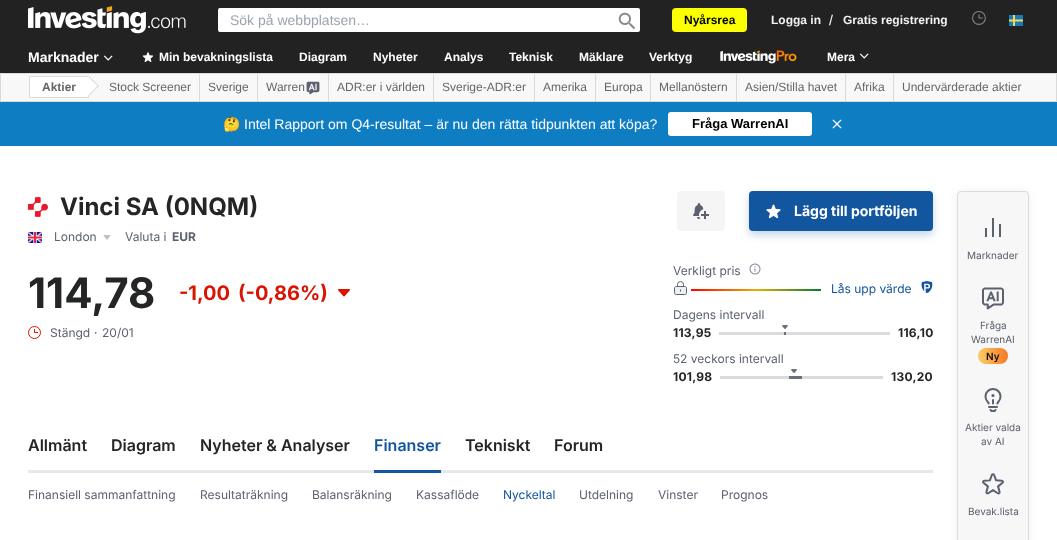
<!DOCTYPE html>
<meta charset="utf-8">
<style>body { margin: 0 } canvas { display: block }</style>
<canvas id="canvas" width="1057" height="540"></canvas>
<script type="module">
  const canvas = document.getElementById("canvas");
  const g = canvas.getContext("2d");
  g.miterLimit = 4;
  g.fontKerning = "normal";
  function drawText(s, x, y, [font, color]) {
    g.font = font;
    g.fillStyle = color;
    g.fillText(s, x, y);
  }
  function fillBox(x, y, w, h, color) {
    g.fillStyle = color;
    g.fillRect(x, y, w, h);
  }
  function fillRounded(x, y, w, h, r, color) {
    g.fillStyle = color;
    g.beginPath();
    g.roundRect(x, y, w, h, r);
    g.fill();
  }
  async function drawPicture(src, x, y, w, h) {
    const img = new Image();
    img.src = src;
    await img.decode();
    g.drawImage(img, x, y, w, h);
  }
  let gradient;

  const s1 = ["14px Liberation Sans", "#9CA3AF"];
  const s2 = ["bold 12px Liberation Sans", "#000000"];
  const s3 = ["bold 12px Liberation Sans", "#F2F2F2"];
  const s4 = ["14px Liberation Sans", "#FFFFFF"];
  const s5 = ["bold 14px Liberation Sans", "#FFFFFF"];
  const s6 = ["bold 12px Liberation Sans", "#FFFFFF"];
  const s7 = ["bold 12px Liberation Sans", "#666666"];
  const s8 = ["12px Liberation Sans", "#666666"];
  const s9 = ["14px Noto Color Emoji", "#FFFFFF"];
  const s10 = ["bold 13px Liberation Sans", "#000000"];
  const s11 = ["bold 24px Inter", "#232526"];
  const s12 = ["12px Inter", "#5B616E"];
  const s13 = ["bold 12px Inter", "#5B616E"];
  const s14 = ["bold 14px Inter", "#FFFFFF"];
  const s15 = ["bold 42px Inter", "#232526"];
  const s16 = ["bold 20px Inter", "#D91400"];
  const s17 = ["12px Inter", "#1256A0"];
  const s18 = ["bold 12px Inter", "#232526"];
  const s19 = ["600 16px Inter", "#232526"];
  const s20 = ["600 16px Inter", "#1256A0"];
  const s21 = ["10px Inter", "#5B616E"];
  const s22 = ["600 10px Inter", "#111111"];

  fillBox(0, 0, 1057, 540, "#FFFFFF");
  fillBox(0, 0, 1057, 73, "#222222");
  await drawPicture("pic1.png", 28, 6, 158, 28);
  fillRounded(218, 8, 422, 24, 2, "#FFFFFF");
  drawText("Sök på webbplatsen…", 230, 25, s1);
  await drawPicture("pic2.png", 618, 12, 18, 18);
  fillRounded(672, 8, 75, 24, 4, "#FBFF00");
  drawText("Nyårsrea", 684, 24, s2);
  drawText("Logga in", 771, 24, s3);
  drawText("/", 829, 25, s4);
  drawText("Gratis registrering", 843, 24, s3);
  await drawPicture("pic3.png", 972, 11, 14, 14);
  await drawPicture("pic4.png", 1009, 15, 14, 11);
  drawText("Marknader", 28, 62, s5);
  await drawPicture("pic5.png", 104, 55, 9, 6);
  await drawPicture("pic6.png", 142, 52, 12, 10);
  drawText("Min bevakningslista", 159, 61, s6);
  drawText("Diagram", 299, 61, s6);
  drawText("Nyheter", 373, 61, s6);
  drawText("Analys", 444, 61, s6);
  drawText("Teknisk", 509, 61, s6);
  drawText("Mäklare", 579, 61, s6);
  drawText("Verktyg", 649, 61, s6);
  await drawPicture("pic7.png", 720, 50, 77, 14);
  drawText("Mera", 827, 61, s6);
  await drawPicture("pic8.png", 859, 53, 10, 6);
  g.fillStyle = "rgba(0, 0, 0, 0.2)";
  g.filter = "blur(1.5px)";
  g.beginPath();
  g.rect(0, 74, 1057, 29);
  g.fill();
  g.filter = "none";
  g.fillStyle = "#F8F8F8";
  g.beginPath();
  g.rect(0.5, 73.5, 1056, 28);
  g.fill();
  g.strokeStyle = "#DADADA";
  g.stroke();
  g.fillStyle = "#FFFFFF";
  g.beginPath();
  g.rect(29.5, 76.5, 59, 21);
  g.fill();
  g.stroke();
  drawText("Aktier", 42, 91, s7);
  g.fillStyle = "#FFFFFF";
  g.beginPath();
  g.moveTo(89, 76);
  g.lineTo(99, 86);
  g.lineTo(89, 96);
  g.lineTo(79, 86);
  g.closePath();
  g.fill();
  g.fillStyle = "#DADADA";
  g.beginPath();
  g.moveTo(89, 76);
  g.lineTo(99, 86);
  g.lineTo(98, 86.5);
  g.lineTo(88.5, 77);
  g.closePath();
  g.fill();
  g.beginPath();
  g.moveTo(98, 85.5);
  g.lineTo(99, 86);
  g.lineTo(89, 96);
  g.lineTo(88.5, 95);
  g.closePath();
  g.fill();
  fillBox(199, 74, 1, 27, "#DADADA");
  drawText("Stock Screener", 109, 91, s8);
  fillBox(257, 74, 1, 27, "#DADADA");
  drawText("Sverige", 208, 91, s8);
  fillBox(328, 74, 1, 27, "#DADADA");
  drawText("Warren", 266, 91, s8);
  await drawPicture("pic9.png", 306, 81, 14, 14);
  fillBox(433, 74, 1, 27, "#DADADA");
  drawText("ADR:er i världen", 337, 91, s8);
  fillBox(534, 74, 1, 27, "#DADADA");
  drawText("Sverige-ADR:er", 442, 91, s8);
  fillBox(595, 74, 1, 27, "#DADADA");
  drawText("Amerika", 543, 91, s8);
  fillBox(650, 74, 1, 27, "#DADADA");
  drawText("Europa", 604, 91, s8);
  fillBox(736, 74, 1, 27, "#DADADA");
  drawText("Mellanöstern", 659, 91, s8);
  fillBox(845, 74, 1, 27, "#DADADA");
  drawText("Asien/Stilla havet", 745, 91, s8);
  fillBox(893, 74, 1, 27, "#DADADA");
  drawText("Afrika", 854, 91, s8);
  drawText("Undervärderade aktier", 902, 91, s8);
  fillBox(0, 102, 1057, 44, "#0F7DC2");
  drawText("🤔", 223, 129, s9);
  drawText("Intel Rapport om Q4-resultat – är nu den rätta tidpunkten att köpa?", 244, 129, s4);
  fillRounded(668, 112, 144, 24, 3, "#FFFFFF");
  drawText("Fråga WarrenAI", 692, 128, s10);
  await drawPicture("pic10.png", 832, 119, 10, 10);
  await drawPicture("pic11.png", 28, 197, 20, 20);
  drawText("Vinci SA (0NQM)", 60, 215, s11);
  await drawPicture("pic12.png", 28, 232, 14, 11);
  drawText("London", 54, 241, s12);
  await drawPicture("pic13.png", 103, 235, 8, 5);
  drawText("Valuta i", 125, 241, s12);
  drawText("EUR", 172, 241, s13);
  fillRounded(677, 191, 48, 40, 4, "#F5F5F5");
  await drawPicture("pic14.png", 693, 203, 16, 16);
  g.fillStyle = "rgba(18, 86, 160, 0.25)";
  g.filter = "blur(4px)";
  g.beginPath();
  g.roundRect(749, 195, 184, 40, 4);
  g.fill();
  g.filter = "none";
  fillRounded(749, 191, 184, 40, 4, "#1256A0");
  await drawPicture("pic15.png", 766, 204, 15, 15);
  drawText("Lägg till portföljen", 794, 216, s14);
  drawText("114,78", 28, 308, s15);
  drawText("-1,00", 179, 300, s16);
  drawText("(-0,86%)", 238, 300, s16);
  await drawPicture("pic16.png", 338, 289, 12, 8);
  await drawPicture("pic17.png", 28, 326, 13, 13);
  drawText("Stängd", 50, 337, s12);
  drawText("·", 94, 337, s12);
  drawText("20/01", 102, 337, s12);
  drawText("Verkligt pris", 673, 275, s12);
  await drawPicture("pic18.png", 749, 263, 12, 12);
  await drawPicture("pic19.png", 674, 281, 13, 14);
  gradient = g.createLinearGradient(691, 290, 821, 290);
  gradient.addColorStop(0, "#FF0000");
  gradient.addColorStop(0.5, "#EBAE04");
  gradient.addColorStop(1, "#007C32");
  g.fillStyle = gradient;
  g.fillRect(691, 289, 130, 2);
  drawText("Lås upp värde", 831, 293, s17);
  await drawPicture("pic20.png", 921, 281, 12, 12);
  drawText("Dagens intervall", 673, 319, s12);
  g.letterSpacing = "0.25px";
  drawText("113,95", 673, 337, s18);
  fillBox(719, 332, 171, 3, "#DADBDE");
  await drawPicture("pic21.png", 782, 325, 6, 4);
  fillBox(784, 332, 2, 3, "#6A707C");
  drawText("116,10", 898, 337, s18);
  g.letterSpacing = "0px";
  drawText("52 veckors intervall", 673, 363, s12);
  g.letterSpacing = "0.25px";
  drawText("101,98", 673, 381, s18);
  fillBox(720, 376, 163, 3, "#DADBDE");
  await drawPicture("pic21.png", 791, 369, 6, 4);
  fillBox(789, 376, 13, 3, "#6A707C");
  drawText("130,20", 891, 381, s18);
  fillBox(28, 470, 905, 3, "#E6E9EB");
  g.letterSpacing = "0px";
  drawText("Allmänt", 28, 451, s19);
  drawText("Diagram", 111, 451, s19);
  drawText("Nyheter & Analyser", 200, 451, s19);
  fillBox(374, 470, 67, 3, "#1256A0");
  drawText("Finanser", 374, 451, s20);
  drawText("Tekniskt", 465, 451, s19);
  drawText("Forum", 554, 451, s19);
  drawText("Finansiell sammanfattning", 28, 499, s12);
  drawText("Resultaträkning", 200, 499, s12);
  drawText("Balansräkning", 312, 499, s12);
  drawText("Kassaflöde", 416, 499, s12);
  drawText("Nyckeltal", 503, 499, s17);
  drawText("Utdelning", 579, 499, s12);
  drawText("Vinster", 658, 499, s12);
  drawText("Prognos", 721, 499, s12);
  g.fillStyle = "rgba(35, 37, 38, 0.07)";
  g.filter = "blur(4px)";
  g.beginPath();
  g.roundRect(957, 191, 72, 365, 4);
  g.fill();
  g.filter = "none";
  g.fillStyle = "#F7F7F8";
  g.beginPath();
  g.roundRect(957.5, 191.5, 71, 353, 3.5);
  g.fill();
  g.strokeStyle = "#D9DCDF";
  g.stroke();
  await drawPicture("pic22.png", 985, 218, 16, 19);
  drawText("Marknader", 967, 259, s21);
  await drawPicture("pic23.png", 982, 287, 22, 23);
  drawText("Fråga", 980, 329, s21);
  drawText("WarrenAI", 971, 343, s21);
  gradient = g.createLinearGradient(978, 357, 1013, 355);
  gradient.addColorStop(0.07, "#FAC761");
  gradient.addColorStop(1, "#F7681C");
  g.fillStyle = gradient;
  g.beginPath();
  g.roundRect(978, 348, 30, 16, 8);
  g.fill();
  drawText("Ny", 986, 360, s22);
  await drawPicture("pic24.png", 984, 388, 18, 24);
  drawText("Aktier valda", 965, 431, s21);
  drawText("av AI", 981, 445, s21);
  await drawPicture("pic25.png", 982, 473, 22, 22);
  drawText("Bevak.lista", 968, 515, s21);
</script>
